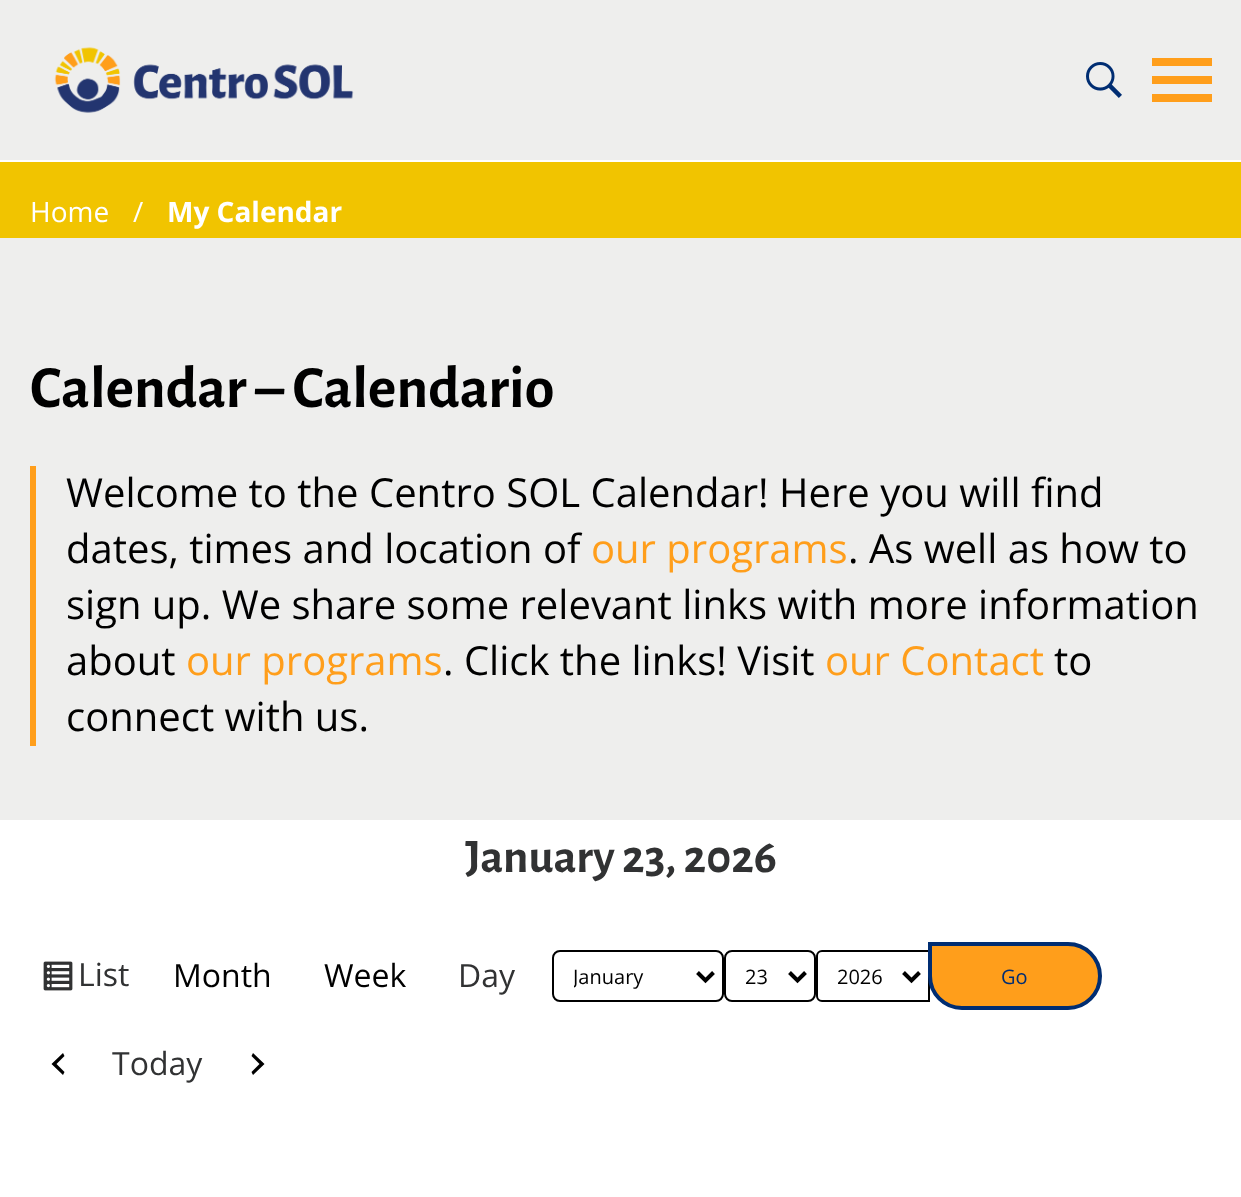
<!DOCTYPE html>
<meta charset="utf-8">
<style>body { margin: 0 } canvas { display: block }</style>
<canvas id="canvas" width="1241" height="1197"></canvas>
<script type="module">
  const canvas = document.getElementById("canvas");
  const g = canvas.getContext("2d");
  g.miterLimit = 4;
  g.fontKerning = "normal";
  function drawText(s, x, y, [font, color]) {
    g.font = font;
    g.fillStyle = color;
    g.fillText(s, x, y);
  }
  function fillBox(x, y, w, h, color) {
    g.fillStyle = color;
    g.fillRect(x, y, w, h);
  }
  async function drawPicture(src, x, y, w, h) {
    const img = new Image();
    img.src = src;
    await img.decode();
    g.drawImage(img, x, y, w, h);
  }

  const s1 = ["28px Open Sans", "#FFFFFF"];
  const s2 = ["bold 28px Open Sans", "#FFFFFF"];
  const s3 = ["bold 60px Alegreya Sans", "#000000"];
  const s4 = ["40px Open Sans", "#000000"];
  const s5 = ["40px Open Sans", "#FF9E1B"];
  const s6 = ["bold 48px Alegreya Sans", "#313233"];
  const s7 = ["32px Open Sans", "#313233"];
  const s8 = ["32px Open Sans", "#000000"];
  const s9 = ["20px Open Sans", "#000000"];
  const s10 = ["20px Open Sans", "#002D72"];

  fillBox(0, 0, 1241, 1197, "#FFFFFF");
  fillBox(0, 0, 1241, 160, "#EEEEED");
  await drawPicture("pic1.png", 54, 47, 300, 66);
  await drawPicture("pic2.png", 1086, 62, 36, 36);
  fillBox(1152, 76, 60, 8, "#FF9E1B");
  fillBox(1152, 58, 60, 8, "#FF9E1B");
  fillBox(1152, 94, 60, 8, "#FF9E1B");
  fillBox(0, 162, 1241, 76, "#F1C400");
  drawText("Home", 30, 222, s1);
  drawText("/", 133, 222, s1);
  drawText("My Calendar", 167, 222, s2);
  fillBox(0, 238, 1241, 582, "#EEEEED");
  drawText("Calendar – Calendario", 30, 407, s3);
  fillBox(30, 466, 6, 280, "#FF9E1B");
  drawText("Welcome to the Centro SOL Calendar! Here you will find", 66, 507, s4);
  drawText("dates, times and location of", 66, 563, s4);
  drawText("our programs", 591, 563, s5);
  drawText(". As well as how to", 848, 563, s4);
  drawText("sign up. We share some relevant links with more information", 66, 619, s4);
  drawText("about", 66, 675, s4);
  drawText("our programs", 186, 675, s5);
  drawText(". Click the links! Visit", 443, 675, s4);
  drawText("our Contact", 825, 675, s5);
  drawText("to", 1054, 675, s4);
  drawText("connect with us.", 66, 731, s4);
  drawText("January 23, 2026", 465, 872, s6);
  await drawPicture("pic3.png", 43, 961, 30, 30);
  drawText("List", 78, 986, s7);
  drawText("Month", 173, 987, s8);
  drawText("Week", 324, 987, s8);
  drawText("Day", 458, 987, s7);
  g.beginPath();
  g.roundRect(553, 951, 170, 50, 7);
  g.strokeStyle = "#000000";
  g.lineWidth = 2;
  g.stroke();
  g.beginPath();
  g.moveTo(697.5, 972.5);
  g.lineTo(705.5, 980.5);
  g.lineTo(713.5, 972.5);
  g.lineWidth = 4;
  g.stroke();
  g.save();
  g.beginPath();
  g.rect(574, 960, 104, 32);
  g.clip();
  drawText("January", 573, 984, s9);
  g.restore();
  g.beginPath();
  g.roundRect(725, 951, 90, 50, 7);
  g.lineWidth = 2;
  g.stroke();
  g.beginPath();
  g.moveTo(789.5, 972.5);
  g.lineTo(797.5, 980.5);
  g.lineTo(805.5, 972.5);
  g.lineWidth = 4;
  g.stroke();
  drawText("23", 745, 984, s9);
  g.beginPath();
  g.roundRect(817, 951, 112, 50, [5, 0, 0, 5]);
  g.lineWidth = 2;
  g.stroke();
  g.beginPath();
  g.moveTo(903.5, 972.5);
  g.lineTo(911.5, 980.5);
  g.lineTo(919.5, 972.5);
  g.lineWidth = 4;
  g.stroke();
  drawText("2026", 837, 984, s9);
  g.fillStyle = "#FF9E1B";
  g.beginPath();
  g.roundRect(930, 944, 170, 64, [0, 32, 32, 32]);
  g.fill();
  g.strokeStyle = "#002D72";
  g.stroke();
  drawText("Go", 1001, 984, s10);
  g.fillStyle = "#000000";
  g.beginPath();
  g.moveTo(64.5, 1056);
  g.lineTo(56.5, 1064);
  g.lineTo(64.5, 1072);
  g.lineTo(63, 1075);
  g.lineTo(51.5, 1064);
  g.lineTo(63, 1053);
  g.closePath();
  g.fill();
  drawText("Today", 112, 1075, s7);
  g.fillStyle = "#000000";
  g.beginPath();
  g.moveTo(251.5, 1072);
  g.lineTo(259.5, 1064);
  g.lineTo(251.5, 1056);
  g.lineTo(253, 1053);
  g.lineTo(264.5, 1064);
  g.lineTo(253, 1075);
  g.closePath();
  g.fill();
</script>
